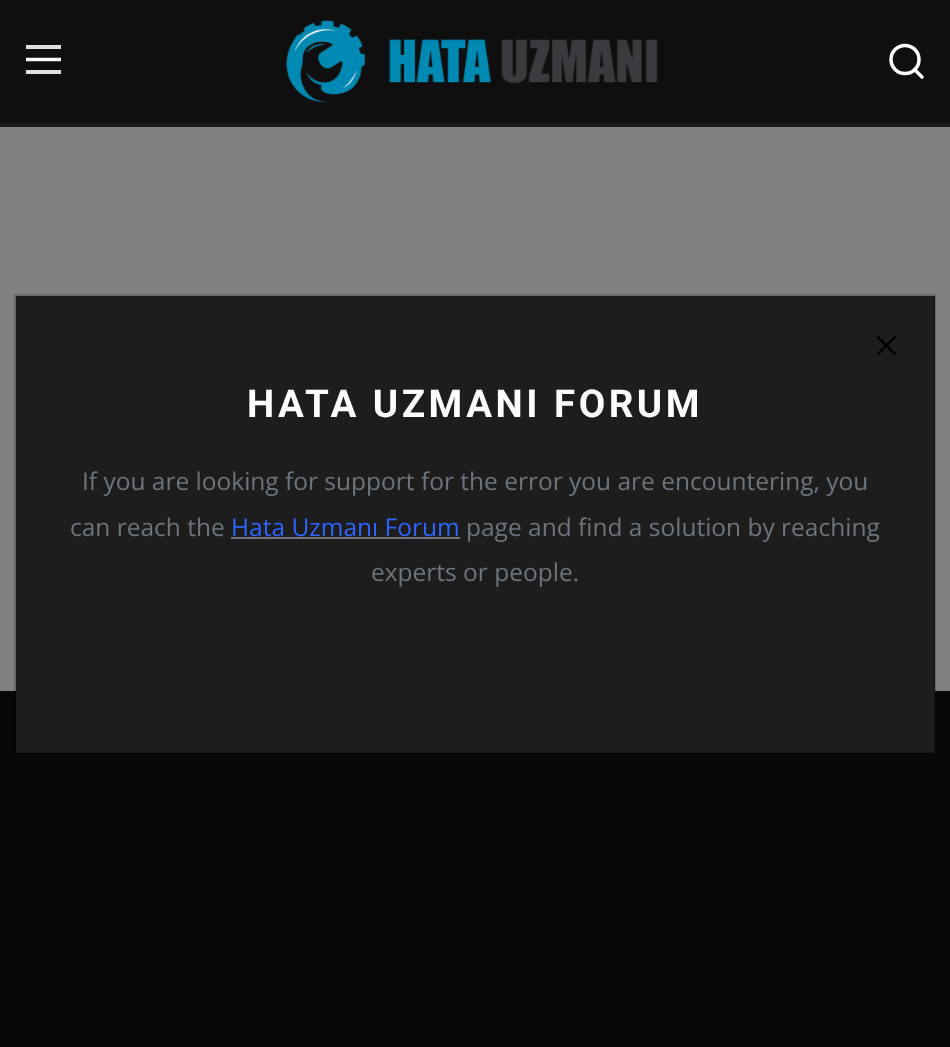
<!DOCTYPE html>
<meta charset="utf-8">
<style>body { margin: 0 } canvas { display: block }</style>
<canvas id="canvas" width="950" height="1047"></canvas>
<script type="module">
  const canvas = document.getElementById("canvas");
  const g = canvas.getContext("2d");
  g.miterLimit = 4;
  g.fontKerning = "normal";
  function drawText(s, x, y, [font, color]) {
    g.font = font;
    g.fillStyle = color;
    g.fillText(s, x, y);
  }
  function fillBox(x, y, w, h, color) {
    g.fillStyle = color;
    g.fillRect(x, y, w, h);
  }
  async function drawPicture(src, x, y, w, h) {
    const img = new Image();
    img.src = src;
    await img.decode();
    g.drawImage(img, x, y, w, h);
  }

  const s1 = ["bold 38.5px Roboto", "#FDFDFD"];
  const s2 = ["24.5px Open Sans", "#6C757D"];
  const s3 = ["24.5px Open Sans", "#2D65FE"];

  fillBox(0, 0, 950, 1047, "#080808");
  fillBox(0, 127, 950, 564, "#808080");
  fillBox(0, 0, 950, 123, "#0F0F0F");
  fillBox(0, 123, 950, 4, "#1A1A1A");
  fillBox(26, 45, 35, 4, "#DFDFDF");
  g.beginPath();
  g.moveTo(26, 59.5);
  g.lineTo(61, 59.5);
  g.strokeStyle = "#FDFDFD";
  g.lineWidth = 3.5;
  g.stroke();
  fillBox(26, 70, 35, 4, "#DFDFDF");
  await drawPicture("pic1.png", 286, 20, 372, 83);
  g.beginPath();
  g.arc(905, 59.5, 14, 0, Math.PI * 2);
  g.stroke();
  g.beginPath();
  g.moveTo(922, 77);
  g.lineTo(914.5, 69.5);
  g.lineCap = "round";
  g.lineJoin = "round";
  g.stroke();
  fillBox(16, 296, 919, 457, "#1D1D1D");
  g.strokeStyle = "rgba(0, 0, 0, 0.18)";
  g.lineWidth = 2;
  g.lineJoin = "miter";
  g.strokeRect(15, 295, 920, 458);
  await drawPicture("pic2.png", 877, 336, 19, 19);
  g.letterSpacing = "3.5px";
  drawText("HATA UZMANI FORUM", 247, 417, s1);
  g.letterSpacing = "0px";
  drawText("If you are looking for support for the error you are encountering, you", 82, 490, s2);
  drawText("can reach the", 70, 536, s2);
  drawText("Hata Uzmanı Forum", 231, 536, s3);
  fillBox(231, 537, 229, 2, "#6C757D");
  drawText("page and find a solution by reaching", 466, 536, s2);
  drawText("experts or people.", 371, 581, s2);
</script>
